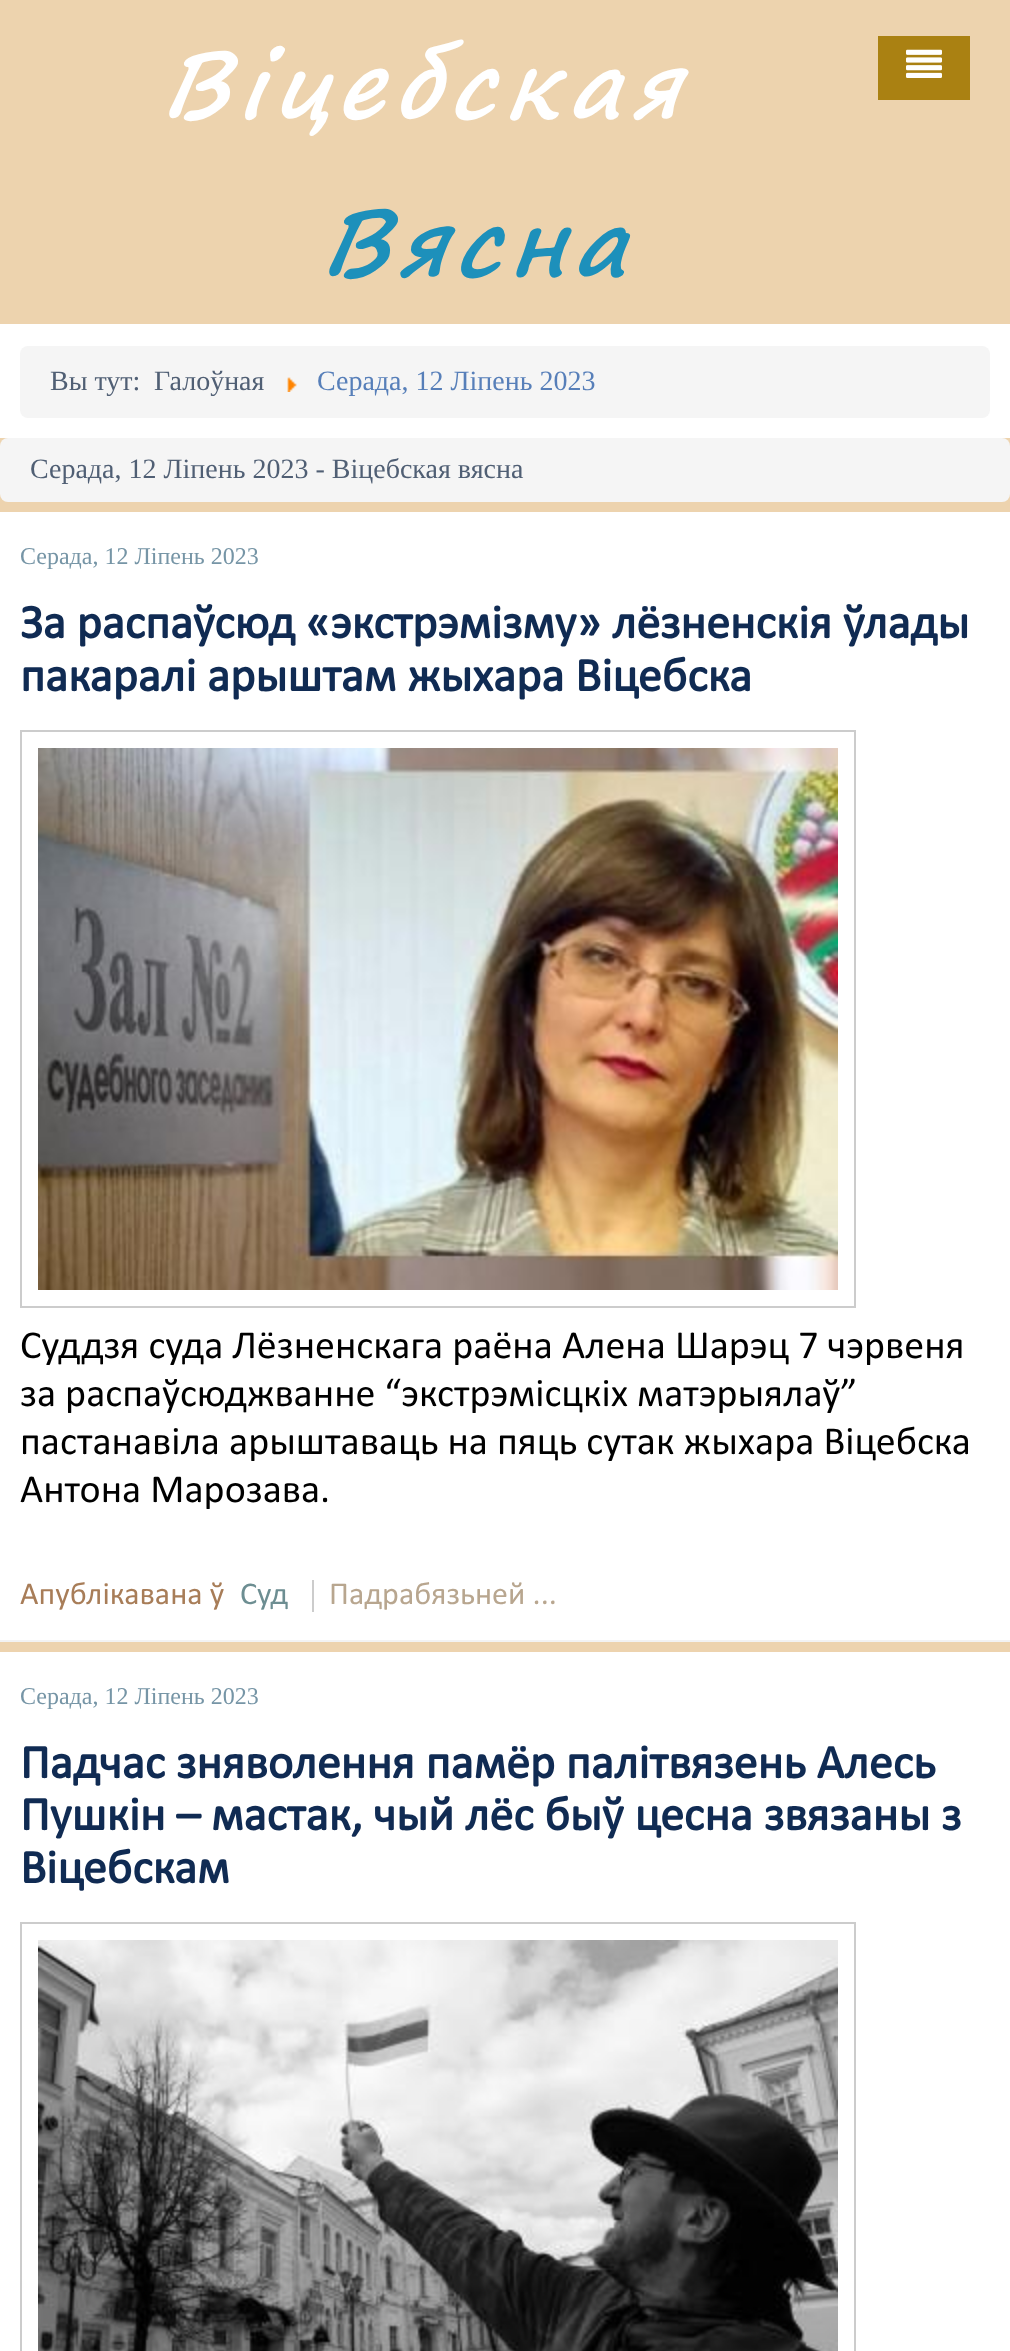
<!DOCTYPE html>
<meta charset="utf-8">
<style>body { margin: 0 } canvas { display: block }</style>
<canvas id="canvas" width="1010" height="2351"></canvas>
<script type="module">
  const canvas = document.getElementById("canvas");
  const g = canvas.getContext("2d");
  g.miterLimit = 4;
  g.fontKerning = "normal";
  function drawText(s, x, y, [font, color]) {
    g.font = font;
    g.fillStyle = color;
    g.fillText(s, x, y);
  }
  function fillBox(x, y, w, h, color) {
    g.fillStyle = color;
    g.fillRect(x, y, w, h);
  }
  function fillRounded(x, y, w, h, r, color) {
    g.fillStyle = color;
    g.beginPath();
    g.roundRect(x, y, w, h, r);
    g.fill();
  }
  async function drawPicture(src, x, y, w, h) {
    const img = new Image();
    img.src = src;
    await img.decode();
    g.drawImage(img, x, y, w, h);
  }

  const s1 = ["italic bold 90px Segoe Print", "#FFFFFF"];
  const s2 = ["italic bold 90px Segoe Print", "#1D90BB"];
  const s3 = ["28px Liberation Serif", "#505F74"];
  const s4 = ["28px Liberation Serif", "#577FB9"];
  const s5 = ["24px Liberation Serif", "#7695A6"];
  const s6 = ["bold 48px Calibri", "#102B53"];
  const s7 = ["40px Calibri", "#000000"];
  const s8 = ["32px Calibri", "#A87D58"];
  const s9 = ["32px Calibri", "#6D8E92"];
  const s10 = ["32px Calibri", "#B8A68F"];

  fillBox(0, 0, 1010, 2351, "#EDD3AE");
  g.letterSpacing = "10px";
  drawText("Віцебская", 160, 118, s1);
  drawText("Вясна", 320, 276, s2);
  fillBox(878, 36, 92, 64, "#AA8112");
  await drawPicture("pic1.png", 906, 49, 36, 29);
  fillBox(0, 324, 1010, 114, "#FFFFFF");
  fillRounded(20, 346, 970, 72, 8, "#F5F5F5");
  g.letterSpacing = "0px";
  drawText("Вы тут:", 50, 390, s3);
  drawText("Галоўная", 154, 390, s3);
  await drawPicture("pic2.png", 287, 377, 10, 15);
  drawText("Серада, 12 Ліпень 2023", 317, 390, s4);
  fillRounded(0, 438, 1010, 64, 8, "#F5F5F5");
  drawText("Серада, 12 Ліпень 2023 - Віцебская вясна", 30, 478, s3);
  fillBox(0, 512, 1010, 1128, "#FFFFFF");
  fillBox(0, 1640, 1010, 2, "#F2F2F2");
  drawText("Серада, 12 Ліпень 2023", 20, 564, s5);
  drawText("За распаўсюд «экстрэмізму» лёзненскія ўлады", 20, 638, s6);
  drawText("пакаралі арыштам жыхара Віцебска", 20, 691, s6);
  g.strokeStyle = "#CCCCCC";
  g.lineWidth = 2;
  g.strokeRect(21, 731, 834, 576);
  await drawPicture("pic3.png", 38, 748, 800, 542);
  drawText("Суддзя суда Лёзненскага раёна Алена Шарэц 7 чэрвеня", 20, 1358, s7);
  drawText("за распаўсюджванне “экстрэмісцкіх матэрыялаў”", 20, 1406, s7);
  drawText("пастанавіла арыштаваць на пяць сутак жыхара Віцебска", 20, 1454, s7);
  drawText("Антона Марозава.", 20, 1502, s7);
  drawText("Апублікавана ў", 20, 1604, s8);
  drawText("Суд", 240, 1604, s9);
  fillBox(312, 1580, 2, 32, "#CCCCCC");
  drawText("Падрабязьней ...", 329, 1604, s10);
  fillBox(0, 1652, 1010, 699, "#FFFFFF");
  drawText("Серада, 12 Ліпень 2023", 20, 1704, s5);
  drawText("Падчас зняволення памёр палітвязень Алесь", 20, 1778, s6);
  drawText("Пушкін – мастак, чый лёс быў цесна звязаны з", 20, 1830, s6);
  drawText("Віцебскам", 20, 1883, s6);
  g.strokeRect(21, 1923, 834, 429);
  await drawPicture("pic4.png", 38, 1940, 800, 411);
</script>
